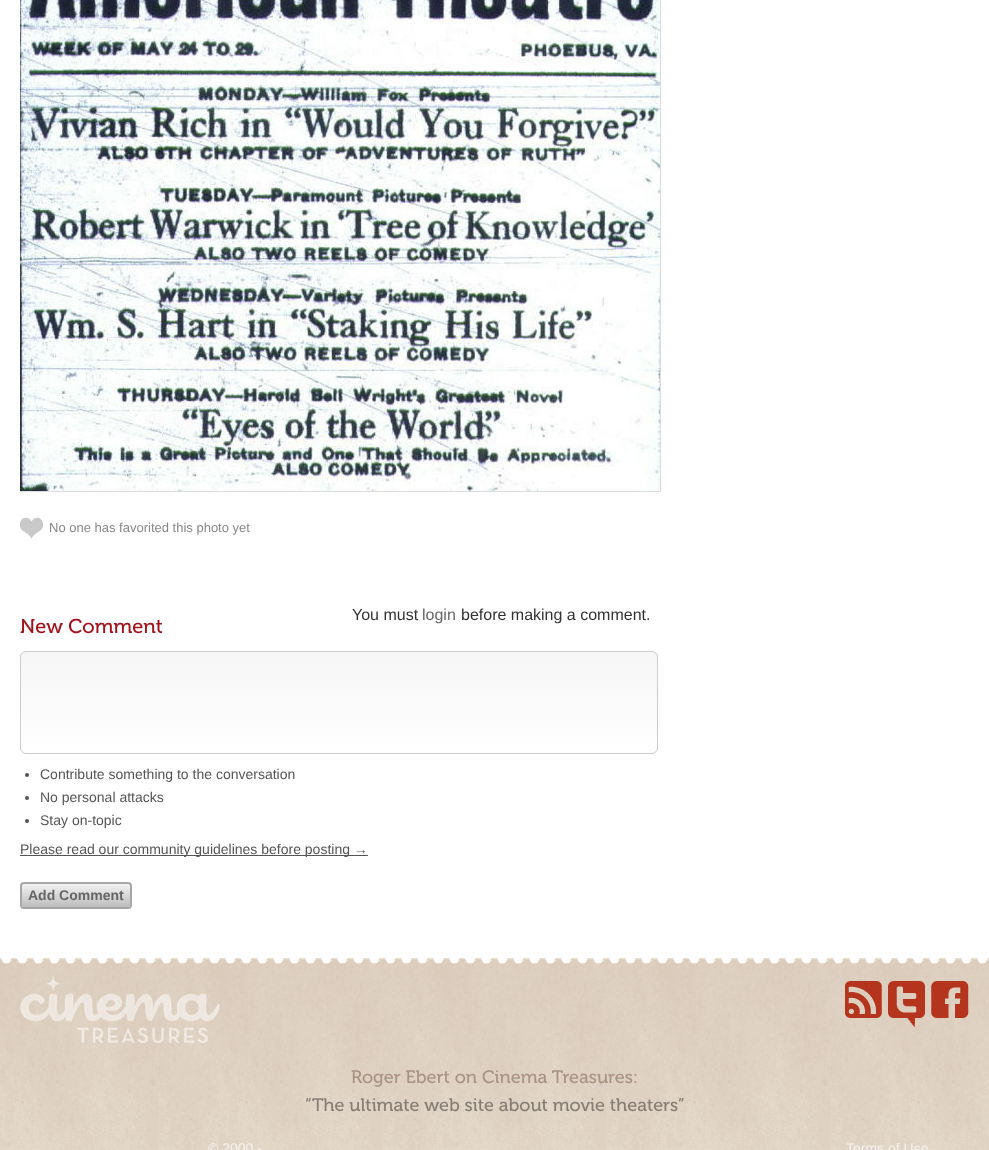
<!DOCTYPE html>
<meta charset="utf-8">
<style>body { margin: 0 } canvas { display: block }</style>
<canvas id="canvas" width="989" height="1150"></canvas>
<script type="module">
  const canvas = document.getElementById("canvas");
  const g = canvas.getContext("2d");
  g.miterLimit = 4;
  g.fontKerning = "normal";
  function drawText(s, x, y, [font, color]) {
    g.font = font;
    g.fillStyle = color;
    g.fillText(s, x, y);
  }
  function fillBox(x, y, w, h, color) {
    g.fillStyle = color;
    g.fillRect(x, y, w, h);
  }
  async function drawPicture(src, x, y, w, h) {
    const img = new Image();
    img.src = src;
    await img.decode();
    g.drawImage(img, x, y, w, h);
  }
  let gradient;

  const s1 = ["13px Liberation Sans", "#888888"];
  const s2 = ["16px Liberation Sans", "#333333"];
  const s3 = ["16px Liberation Sans", "#666666"];
  const s4 = ["20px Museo", "#A3121B"];
  const s5 = ["14px Liberation Sans", "#555555"];
  const s6 = ["bold 14px Liberation Sans", "#666666"];
  const s7 = ["18px Museo", "#A99382"];
  const s8 = ["18px Museo", "#867E75"];
  const s9 = ["14px Liberation Sans", "#F6F2EE"];

  fillBox(0, 0, 989, 1150, "#FFFFFF");
  await drawPicture("pic1.png", 20, 0, 640, 491);
  g.save();
  g.beginPath();
  g.rect(20, 0, 949, 1135);
  g.clip();
  g.strokeStyle = "#DDDDDD";
  g.strokeRect(19.5, -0.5, 641, 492);
  g.restore();
  await drawPicture("pic2.png", 20, 517, 23, 22);
  drawText("No one has favorited this photo yet", 49, 532, s1);
  drawText("You must", 352, 620, s2);
  drawText("login", 422, 620, s3);
  drawText("before making a comment.", 461, 620, s2);
  drawText("New Comment", 20, 633, s4);
  g.save();
  g.beginPath();
  g.roundRect(20, 651, 638, 103, 6);
  g.clip();
  gradient = g.createLinearGradient(339, 652, 339, 753);
  gradient.addColorStop(0, "#F6F6F6");
  gradient.addColorStop(1, "#FFFFFF");
  g.fillStyle = gradient;
  g.fillRect(20, 652, 638, 101);
  g.restore();
  g.beginPath();
  g.roundRect(20.5, 651.5, 637, 102, 5.5);
  g.strokeStyle = "#CCCCCC";
  g.stroke();
  g.fillStyle = "#555555";
  g.beginPath();
  g.arc(27, 775, 2, 0, Math.PI * 2);
  g.fill();
  drawText("Contribute something to the conversation", 40, 779, s5);
  g.beginPath();
  g.arc(27, 798, 2, 0, Math.PI * 2);
  g.fill();
  drawText("No personal attacks", 40, 802, s5);
  g.beginPath();
  g.arc(27, 821, 2, 0, Math.PI * 2);
  g.fill();
  drawText("Stay on-topic", 40, 825, s5);
  fillBox(20, 855, 348, 1, "#555555");
  drawText("Please read our community guidelines before posting →", 20, 854, s5);
  gradient = g.createLinearGradient(76, 884, 76, 907);
  gradient.addColorStop(0, "#F2F2F2");
  gradient.addColorStop(1, "#BDBDBD");
  g.fillStyle = gradient;
  g.beginPath();
  g.roundRect(22, 884, 108, 23, 2);
  g.fill();
  g.beginPath();
  g.roundRect(21, 883, 110, 25, 3);
  g.strokeStyle = "#A6A6A6";
  g.lineWidth = 2;
  g.stroke();
  drawText("Add Comment", 28, 900, s6);
  await drawPicture("pic3.png", 0, 958, 989, 192);
  await drawPicture("pic4.png", 20, 975, 200, 68);
  await drawPicture("pic5.png", 845, 981, 37, 37);
  await drawPicture("pic6.png", 888, 981, 37, 46);
  await drawPicture("pic7.png", 931, 981, 38, 37);
  drawText("Roger Ebert on Cinema Treasures:", 351, 1083, s7);
  drawText("“The ultimate web site about movie theaters”", 305, 1111, s8);
  drawText("© 2000 -", 208, 1153, s9);
  drawText("Terms of Use", 846, 1153, s9);
</script>
